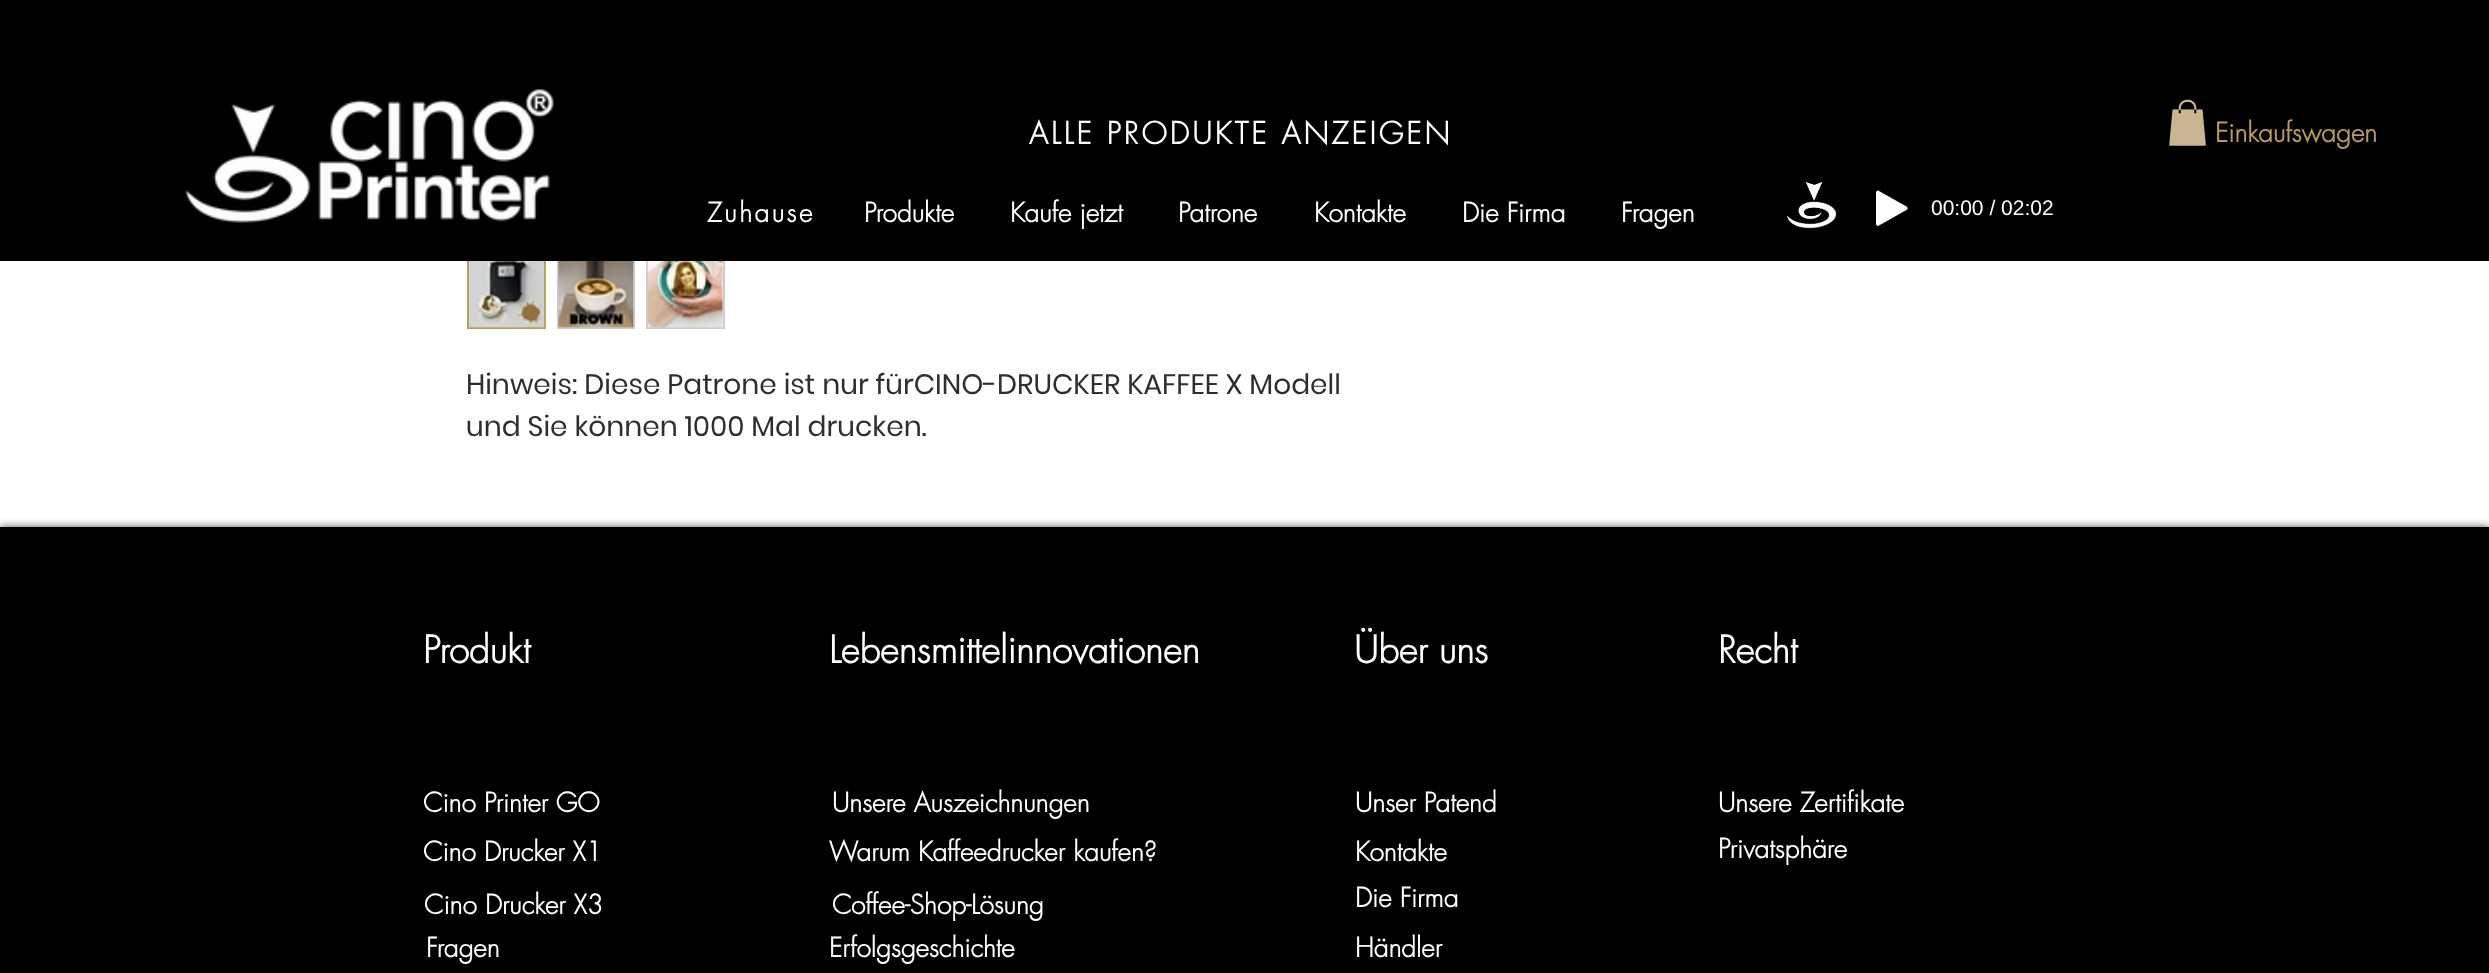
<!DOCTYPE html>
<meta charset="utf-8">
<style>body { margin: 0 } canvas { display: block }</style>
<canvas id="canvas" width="2489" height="973"></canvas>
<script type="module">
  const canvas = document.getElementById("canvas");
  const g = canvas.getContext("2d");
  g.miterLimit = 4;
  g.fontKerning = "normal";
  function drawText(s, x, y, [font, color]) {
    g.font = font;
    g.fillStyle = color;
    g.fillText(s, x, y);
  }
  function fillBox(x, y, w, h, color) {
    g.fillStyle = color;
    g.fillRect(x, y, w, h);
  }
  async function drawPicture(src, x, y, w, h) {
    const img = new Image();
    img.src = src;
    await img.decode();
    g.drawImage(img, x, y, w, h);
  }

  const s1 = ["bold 29.75px futura", "#FFFFFF"];
  const s2 = ["bold 26.25px futura", "#BC9B5D"];
  const s3 = ["bold 26.25px futura", "#FFFFFF"];
  const s4 = ["21px Liberation Sans", "#FFFFFF"];
  const s5 = ["28px Poppins", "#2F2E2E"];
  const s6 = ["bold 36.75px futura", "#FFFFFF"];

  fillBox(0, 0, 2489, 973, "#FFFFFF");
  g.strokeStyle = "#BC9B5D";
  g.lineWidth = 2;
  g.strokeRect(468, 251, 77, 77);
  g.strokeStyle = "#CCCCCC";
  g.strokeRect(558, 251, 76, 77);
  g.strokeRect(647, 251, 77, 77);
  fillBox(0, 0, 2489, 261, "#000000");
  await drawPicture("pic1.png", 185, 89, 369, 134);
  g.letterSpacing = "3px";
  drawText("ALLE PRODUKTE ANZEIGEN", 1029, 144, s1);
  await drawPicture("pic2.png", 2169, 99, 37, 47);
  g.letterSpacing = "0px";
  drawText("Einkaufswagen", 2215, 142, s2);
  g.letterSpacing = "2.5px";
  drawText("Zuhause", 707, 222, s3);
  g.letterSpacing = "0px";
  drawText("Produkte", 864, 222, s3);
  drawText("Kaufe jetzt", 1010, 222, s3);
  drawText("Patrone", 1178, 222, s3);
  drawText("Kontakte", 1314, 222, s3);
  drawText("Die Firma", 1462, 222, s3);
  drawText("Fragen", 1621, 222, s3);
  await drawPicture("pic3.png", 1787, 182, 50, 47);
  g.beginPath();
  g.moveTo(1906.5, 206.5);
  g.bezierCurveTo(1908, 207.5, 1908, 209, 1906.5, 210);
  g.lineTo(1879, 225.5);
  g.bezierCurveTo(1877.5, 226.5, 1876, 225.5, 1876, 223.5);
  g.lineTo(1876, 193);
  g.bezierCurveTo(1876, 191, 1877.5, 190, 1879, 191);
  g.closePath();
  g.fill();
  drawText("00:00 / 02:02", 1931, 215, s4);
  await drawPicture("pic4.png", 469, 261, 76, 67);
  await drawPicture("pic5.png", 558, 261, 76, 67);
  await drawPicture("pic6.png", 647, 261, 76, 67);
  drawText("Hinweis: Diese Patrone ist nur fürCINO-DRUCKER KAFFEE X Modell", 466, 394, s5);
  drawText("und Sie können 1000 Mal drucken.", 466, 436, s5);
  g.fillStyle = "rgba(0, 0, 0, 0.7)";
  g.filter = "blur(4.5px)";
  g.beginPath();
  g.rect(0, 527, 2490, 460);
  g.fill();
  g.filter = "none";
  fillBox(0, 527, 2489, 446, "#000000");
  drawText("Produkt", 423, 663, s6);
  drawText("Lebensmittelinnovationen", 829, 663, s6);
  drawText("Über uns", 1354, 663, s6);
  drawText("Recht", 1718, 663, s6);
  drawText("Cino Printer GO", 423, 812, s3);
  drawText("Unsere Auszeichnungen", 832, 812, s3);
  drawText("Unser Patend", 1355, 812, s3);
  drawText("Unsere Zertifikate", 1718, 812, s3);
  drawText("Cino Drucker X1", 423, 861, s3);
  drawText("Warum Kaffeedrucker kaufen?", 829, 861, s3);
  drawText("Kontakte", 1355, 861, s3);
  drawText("Privatsphäre", 1718, 858, s3);
  drawText("Cino Drucker X3", 424, 914, s3);
  drawText("Coffee-Shop-Lösung", 832, 914, s3);
  drawText("Die Firma", 1355, 907, s3);
  drawText("Fragen", 426, 957, s3);
  drawText("Erfolgsgeschichte", 829, 957, s3);
  drawText("Händler", 1355, 957, s3);
</script>
